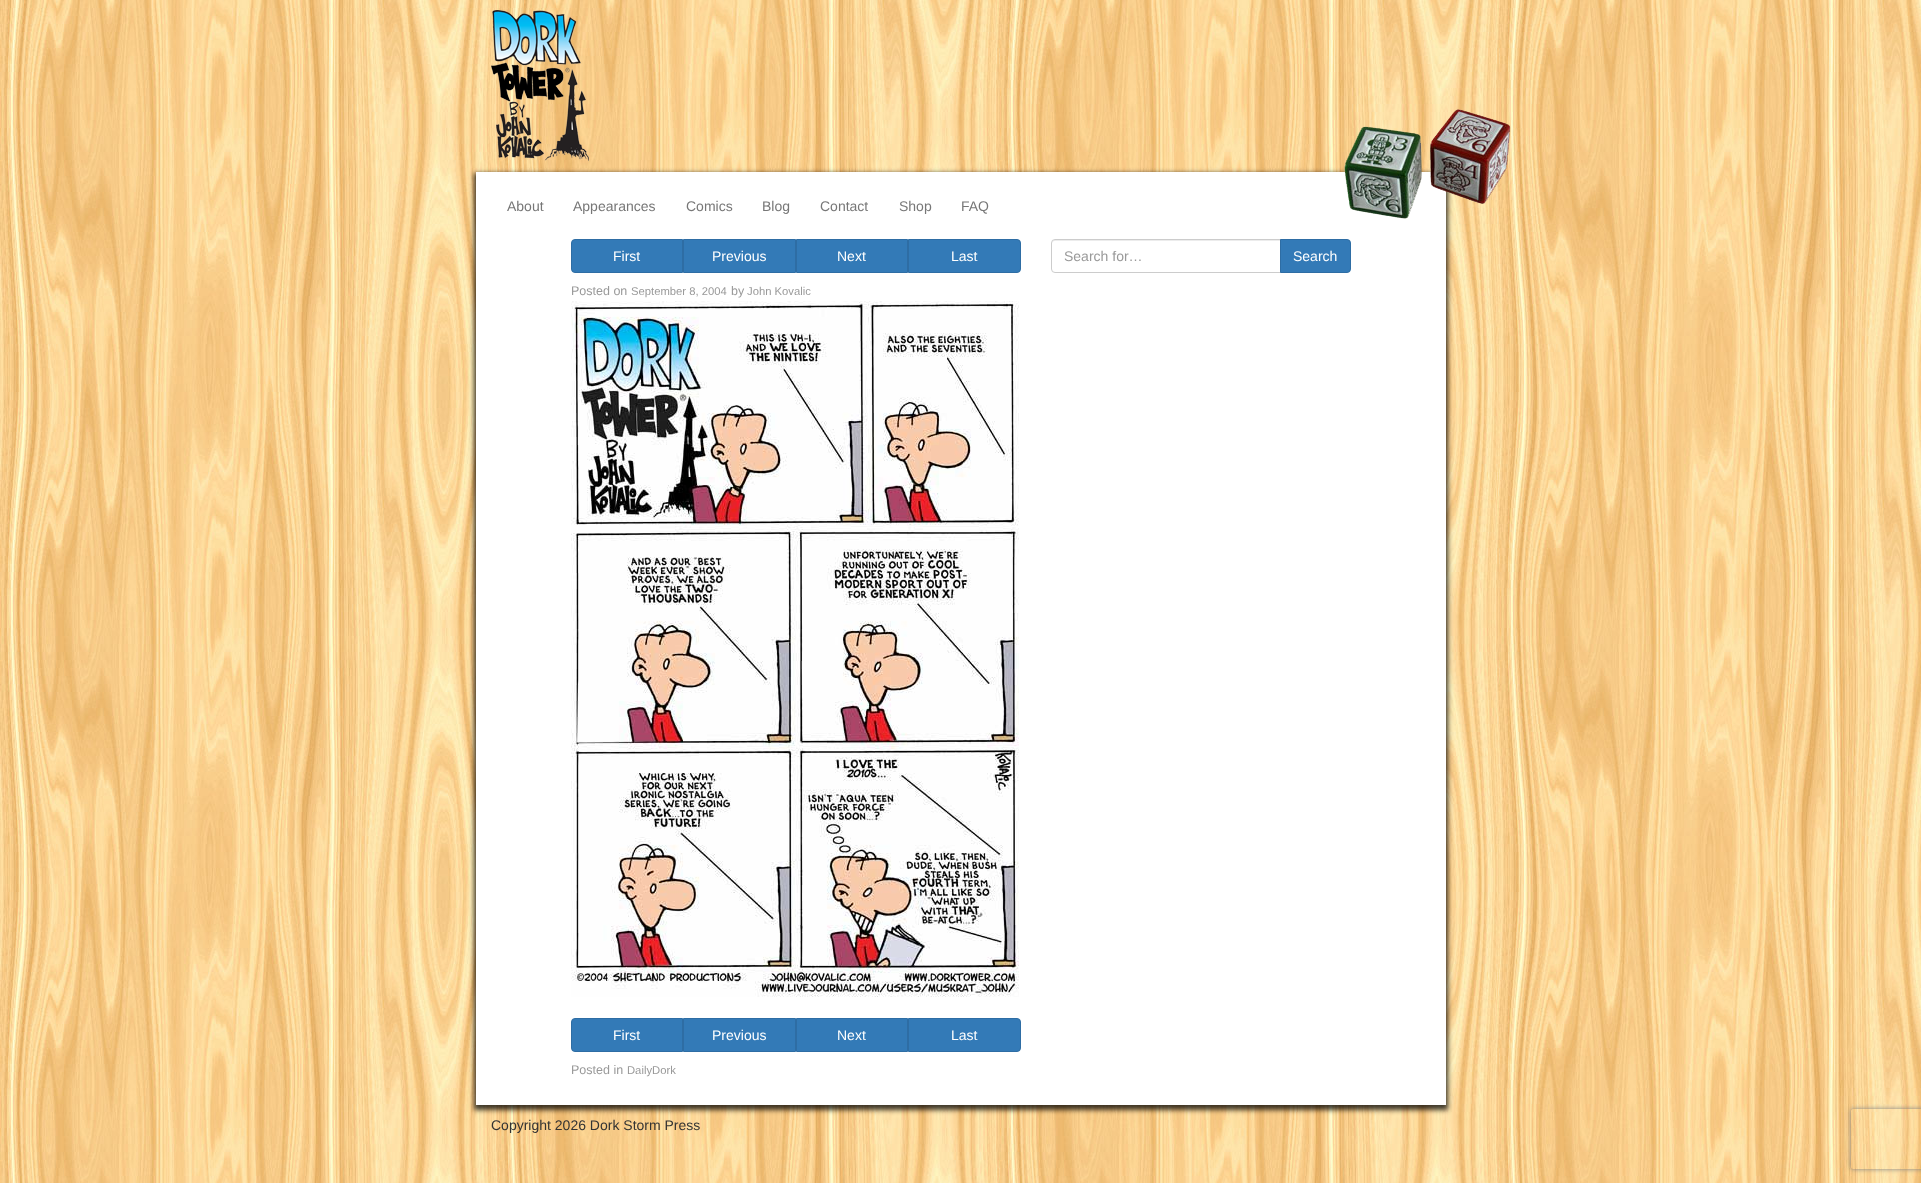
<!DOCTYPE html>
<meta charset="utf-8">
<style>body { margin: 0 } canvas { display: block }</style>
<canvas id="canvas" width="1921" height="1183"></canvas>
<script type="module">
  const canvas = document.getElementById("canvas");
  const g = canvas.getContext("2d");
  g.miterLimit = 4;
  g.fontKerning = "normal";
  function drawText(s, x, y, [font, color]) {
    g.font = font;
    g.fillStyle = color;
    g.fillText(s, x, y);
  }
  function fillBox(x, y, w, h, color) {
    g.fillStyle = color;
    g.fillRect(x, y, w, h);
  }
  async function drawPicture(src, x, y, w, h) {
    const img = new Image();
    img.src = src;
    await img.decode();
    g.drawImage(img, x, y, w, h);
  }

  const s1 = ["14px Liberation Sans", "#777777"];
  const s2 = ["14px Liberation Sans", "#FFFFFF"];
  const s3 = ["12.5px Liberation Sans", "#999999"];
  const s4 = ["11.25px Liberation Sans", "#999999"];
  const s5 = ["14px Liberation Sans", "#999999"];
  const s6 = ["14px Liberation Sans", "#333333"];

  fillBox(0, 0, 1921, 1183, "#FFFFFF");
  await drawPicture("pic1.png", 0, 0, 1921, 1183);
  await drawPicture("pic2.png", 491, 10, 98, 151);
  g.fillStyle = "rgba(0, 0, 0, 0.75)";
  g.filter = "blur(2.5px)";
  g.beginPath();
  g.rect(474, 173, 974, 937);
  g.fill();
  g.filter = "none";
  fillBox(476, 172, 970, 933, "#FFFFFF");
  await drawPicture("pic3.png", 1344, 109, 167, 110);
  drawText("About", 507, 211, s1);
  drawText("Appearances", 573, 211, s1);
  drawText("Comics", 686, 211, s1);
  drawText("Blog", 762, 211, s1);
  drawText("Contact", 820, 211, s1);
  drawText("Shop", 899, 211, s1);
  drawText("FAQ", 961, 211, s1);
  g.fillStyle = "#337AB7";
  g.beginPath();
  g.roundRect(571.5, 239.5, 111, 33, [3.5, 0, 0, 3.5]);
  g.fill();
  g.strokeStyle = "#2E6DA4";
  g.stroke();
  drawText("First", 613, 261, s2);
  g.fillStyle = "#337AB7";
  g.beginPath();
  g.rect(683.5, 239.5, 112, 33);
  g.fill();
  g.stroke();
  drawText("Previous", 712, 261, s2);
  g.fillStyle = "#337AB7";
  g.beginPath();
  g.rect(796.5, 239.5, 111, 33);
  g.fill();
  g.stroke();
  drawText("Next", 837, 261, s2);
  g.fillStyle = "#337AB7";
  g.beginPath();
  g.roundRect(908.5, 239.5, 112, 33, [0, 3.5, 3.5, 0]);
  g.fill();
  g.stroke();
  drawText("Last", 951, 261, s2);
  drawText("Posted on", 571, 295, s3);
  drawText("September 8, 2004", 631, 295, s4);
  drawText("by", 731, 295, s3);
  drawText("John Kovalic", 747, 295, s4);
  await drawPicture("pic4.png", 571, 301, 448, 696);
  g.fillStyle = "#337AB7";
  g.beginPath();
  g.roundRect(571.5, 1018.5, 111, 33, [3.5, 0, 0, 3.5]);
  g.fill();
  g.stroke();
  drawText("First", 613, 1040, s2);
  g.fillStyle = "#337AB7";
  g.beginPath();
  g.rect(683.5, 1018.5, 112, 33);
  g.fill();
  g.stroke();
  drawText("Previous", 712, 1040, s2);
  g.fillStyle = "#337AB7";
  g.beginPath();
  g.rect(796.5, 1018.5, 111, 33);
  g.fill();
  g.stroke();
  drawText("Next", 837, 1040, s2);
  g.fillStyle = "#337AB7";
  g.beginPath();
  g.roundRect(908.5, 1018.5, 112, 33, [0, 3.5, 3.5, 0]);
  g.fill();
  g.stroke();
  drawText("Last", 951, 1040, s2);
  drawText("Posted in", 571, 1074, s3);
  drawText("DailyDork", 627, 1074, s4);
  g.fillStyle = "#ECECEC";
  g.beginPath();
  g.moveTo(1055, 241);
  g.lineTo(1280, 241);
  g.lineTo(1280, 240);
  g.lineTo(1055, 240);
  g.bezierCurveTo(1053, 240, 1052, 242, 1052, 244);
  g.bezierCurveTo(1052, 242, 1053, 241, 1055, 241);
  g.closePath();
  g.fill();
  g.beginPath();
  g.roundRect(1051.5, 239.5, 229, 33, [3.5, 0, 0, 3.5]);
  g.strokeStyle = "#CCCCCC";
  g.stroke();
  drawText("Search for…", 1064, 261, s5);
  g.fillStyle = "#337AB7";
  g.beginPath();
  g.roundRect(1280.5, 239.5, 70, 33, [0, 3.5, 3.5, 0]);
  g.fill();
  g.strokeStyle = "#2E6DA4";
  g.stroke();
  drawText("Search", 1293, 261, s2);
  drawText("Copyright 2026 Dork Storm Press", 491, 1130, s6);
  g.save();
  g.beginPath();
  g.moveTo(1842, 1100);
  g.lineTo(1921, 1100);
  g.lineTo(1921, 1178);
  g.lineTo(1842, 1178);
  g.closePath();
  g.moveTo(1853, 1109);
  g.lineTo(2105, 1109);
  g.bezierCurveTo(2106, 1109, 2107, 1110, 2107, 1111);
  g.lineTo(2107, 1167);
  g.bezierCurveTo(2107, 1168, 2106, 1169, 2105, 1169);
  g.lineTo(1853, 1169);
  g.bezierCurveTo(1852, 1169, 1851, 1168, 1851, 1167);
  g.lineTo(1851, 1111);
  g.bezierCurveTo(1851, 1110, 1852, 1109, 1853, 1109);
  g.closePath();
  g.clip("evenodd");
  g.fillStyle = "#808080";
  g.filter = "blur(2.5px)";
  g.beginPath();
  g.roundRect(1851, 1109, 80, 60, 2);
  g.fill();
  g.filter = "none";
  g.restore();
</script>
